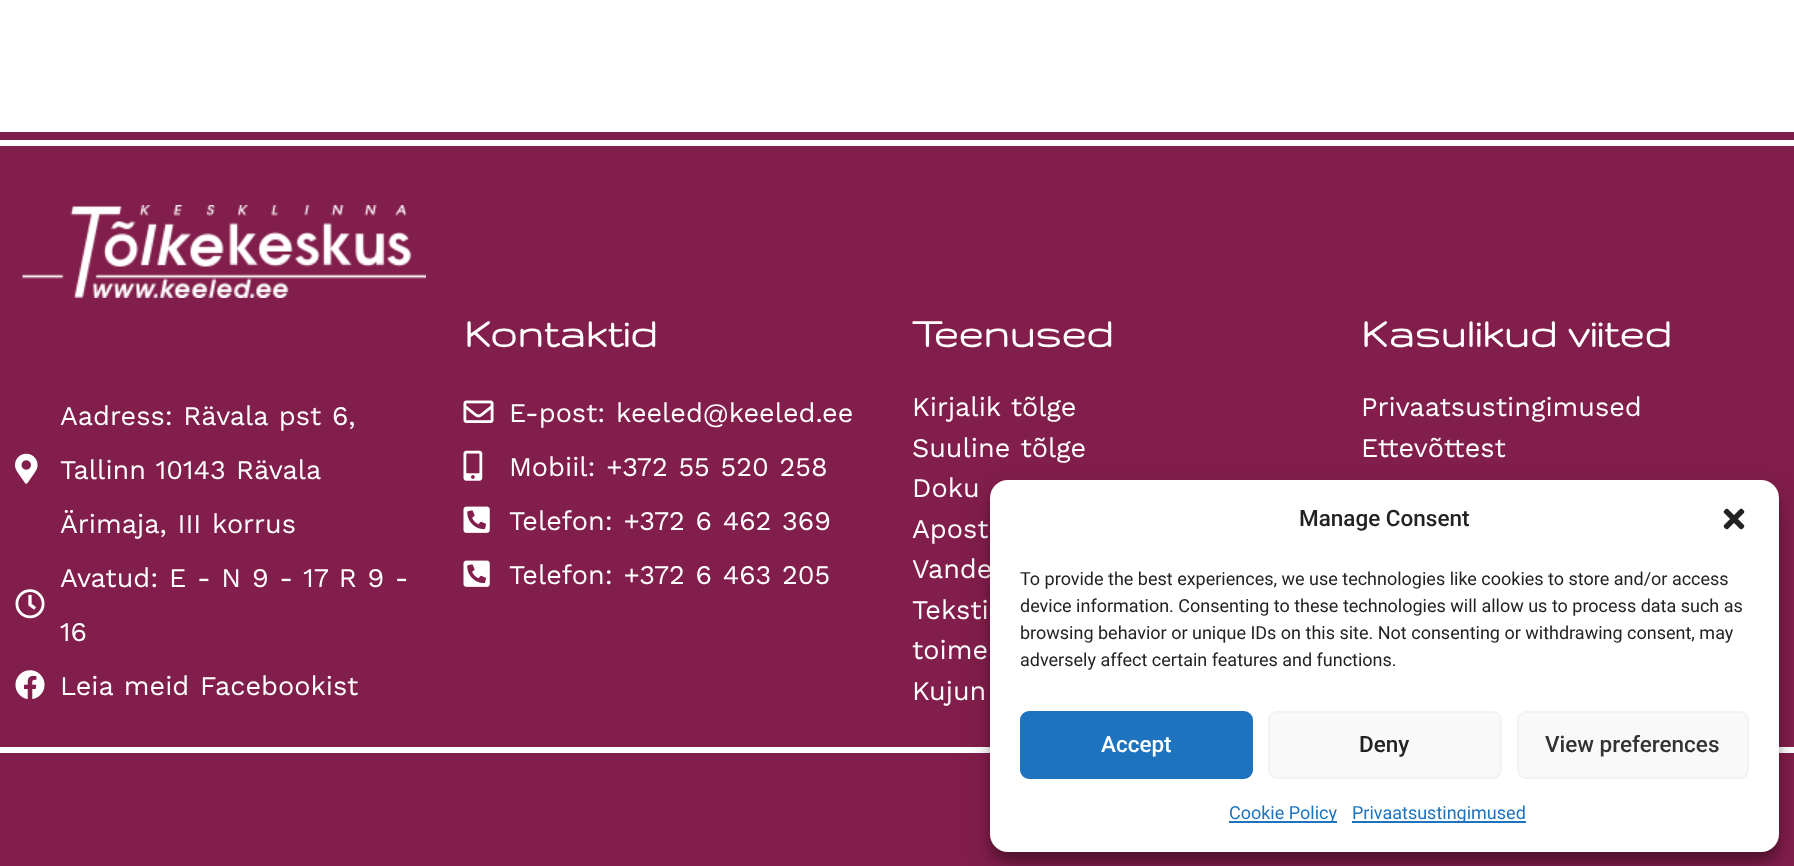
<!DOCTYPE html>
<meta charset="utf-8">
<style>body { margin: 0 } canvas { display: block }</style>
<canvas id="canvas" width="1794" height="866"></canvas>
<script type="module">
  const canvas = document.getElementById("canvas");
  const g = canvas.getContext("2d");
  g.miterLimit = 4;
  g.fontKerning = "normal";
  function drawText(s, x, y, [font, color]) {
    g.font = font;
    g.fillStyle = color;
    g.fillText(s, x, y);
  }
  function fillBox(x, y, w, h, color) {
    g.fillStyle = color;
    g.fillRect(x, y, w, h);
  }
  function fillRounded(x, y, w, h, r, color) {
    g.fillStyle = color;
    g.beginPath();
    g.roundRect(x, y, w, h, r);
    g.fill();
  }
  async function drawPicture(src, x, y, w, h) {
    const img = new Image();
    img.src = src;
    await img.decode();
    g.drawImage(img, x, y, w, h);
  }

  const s1 = ["bold 45px Gruppo", "#FFFFFF"];
  const s2 = ["27px Work Sans", "#FFFFFF"];
  const s3 = ["500 22.5px Roboto", "#222222"];
  const s4 = ["18px Roboto", "#222222"];
  const s5 = ["500 22.5px Roboto", "#FFFFFF"];
  const s6 = ["500 22.5px Roboto", "#333333"];
  const s7 = ["18px Roboto", "#1E73BE"];

  fillBox(0, 0, 1794, 866, "#FFFFFF");
  fillBox(0, 132, 1794, 8, "#821E4B");
  fillBox(0, 146, 1794, 601, "#821E4B");
  drawText("Kontaktid", 464, 347, s1);
  await drawPicture("pic1.png", 463, 400, 31, 23);
  g.wordSpacing = "1.5px";
  drawText("E-post: keeled@keeled.ee", 509, 422, s2);
  await drawPicture("pic2.png", 463, 450, 20, 31);
  drawText("Mobiil: +372 55 520 258", 509, 476, s2);
  await drawPicture("pic3.png", 463, 506, 27, 27);
  drawText("Telefon: +372 6 462 369", 509, 530, s2);
  await drawPicture("pic3.png", 463, 560, 27, 27);
  drawText("Telefon: +372 6 463 205", 509, 584, s2);
  g.wordSpacing = "0px";
  drawText("Teenused", 912, 347, s1);
  g.wordSpacing = "1.5px";
  drawText("Kirjalik tõlge", 912, 416, s2);
  drawText("Suuline tõlge", 912, 457, s2);
  g.wordSpacing = "0px";
  drawText("Doku", 912, 497, s2);
  g.wordSpacing = "1.5px";
  drawText("Apost", 912, 538, s2);
  g.wordSpacing = "0px";
  drawText("Vande", 912, 578, s2);
  g.wordSpacing = "1.5px";
  drawText("Teksti", 912, 619, s2);
  g.wordSpacing = "0px";
  drawText("toime", 912, 659, s2);
  g.wordSpacing = "1.5px";
  drawText("Kujun", 912, 700, s2);
  g.wordSpacing = "0px";
  drawText("Kasulikud viited", 1361, 347, s1);
  drawText("Privaatsustingimused", 1361, 416, s2);
  drawText("Ettevõttest", 1361, 457, s2);
  await drawPicture("pic4.png", 22, 205, 404, 93);
  await drawPicture("pic5.png", 15, 453, 23, 31);
  g.wordSpacing = "1.5px";
  drawText("Aadress: Rävala pst 6,", 60, 425, s2);
  g.wordSpacing = "1px";
  drawText("Tallinn 10143 Rävala", 60, 479, s2);
  g.wordSpacing = "1.5px";
  drawText("Ärimaja, III korrus", 60, 533, s2);
  await drawPicture("pic6.png", 15, 589, 30, 30);
  drawText("Avatud: E - N 9 - 17 R 9 -", 60, 587, s2);
  g.wordSpacing = "0px";
  drawText("16", 60, 641, s2);
  await drawPicture("pic7.png", 15, 670, 30, 30);
  g.wordSpacing = "1.5px";
  drawText("Leia meid Facebookist", 60, 695, s2);
  fillBox(0, 753, 1794, 113, "#821E4B");
  g.fillStyle = "rgba(0, 0, 0, 0.23)";
  g.filter = "blur(4.5px)";
  g.beginPath();
  g.roundRect(990, 489, 789, 372, 18);
  g.fill();
  g.filter = "none";
  g.fillStyle = "rgba(0, 0, 0, 0.19)";
  g.filter = "blur(15px)";
  g.beginPath();
  g.roundRect(990, 495, 789, 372, 18);
  g.fill();
  g.filter = "none";
  fillRounded(990, 480, 789, 372, 18, "#FFFFFF");
  g.wordSpacing = "0px";
  drawText("Manage Consent", 1299, 526, s3);
  await drawPicture("pic8.png", 1723, 508, 22, 22);
  drawText("To provide the best experiences, we use technologies like cookies to store and/or access", 1020, 585, s4);
  drawText("device information. Consenting to these technologies will allow us to process data such as", 1020, 612, s4);
  drawText("browsing behavior or unique IDs on this site. Not consenting or withdrawing consent, may", 1020, 639, s4);
  drawText("adversely affect certain features and functions.", 1020, 666, s4);
  g.fillStyle = "#1E73BE";
  g.beginPath();
  g.roundRect(1021, 712, 231, 66, 8);
  g.fill();
  g.strokeStyle = "#1E73BE";
  g.lineWidth = 2;
  g.stroke();
  drawText("Accept", 1101, 752, s5);
  g.fillStyle = "#F9F9F9";
  g.beginPath();
  g.roundRect(1269, 712, 232, 66, 8);
  g.fill();
  g.strokeStyle = "#F2F2F2";
  g.stroke();
  drawText("Deny", 1359, 752, s3);
  g.fillStyle = "#F9F9F9";
  g.beginPath();
  g.roundRect(1518, 712, 230, 66, 8);
  g.fill();
  g.stroke();
  drawText("View preferences", 1545, 752, s6);
  fillBox(1229, 821, 108, 2, "#1E73BE");
  drawText("Cookie Policy", 1229, 819, s7);
  fillBox(1352, 821, 174, 2, "#1E73BE");
  drawText("Privaatsustingimused", 1352, 819, s7);
</script>
